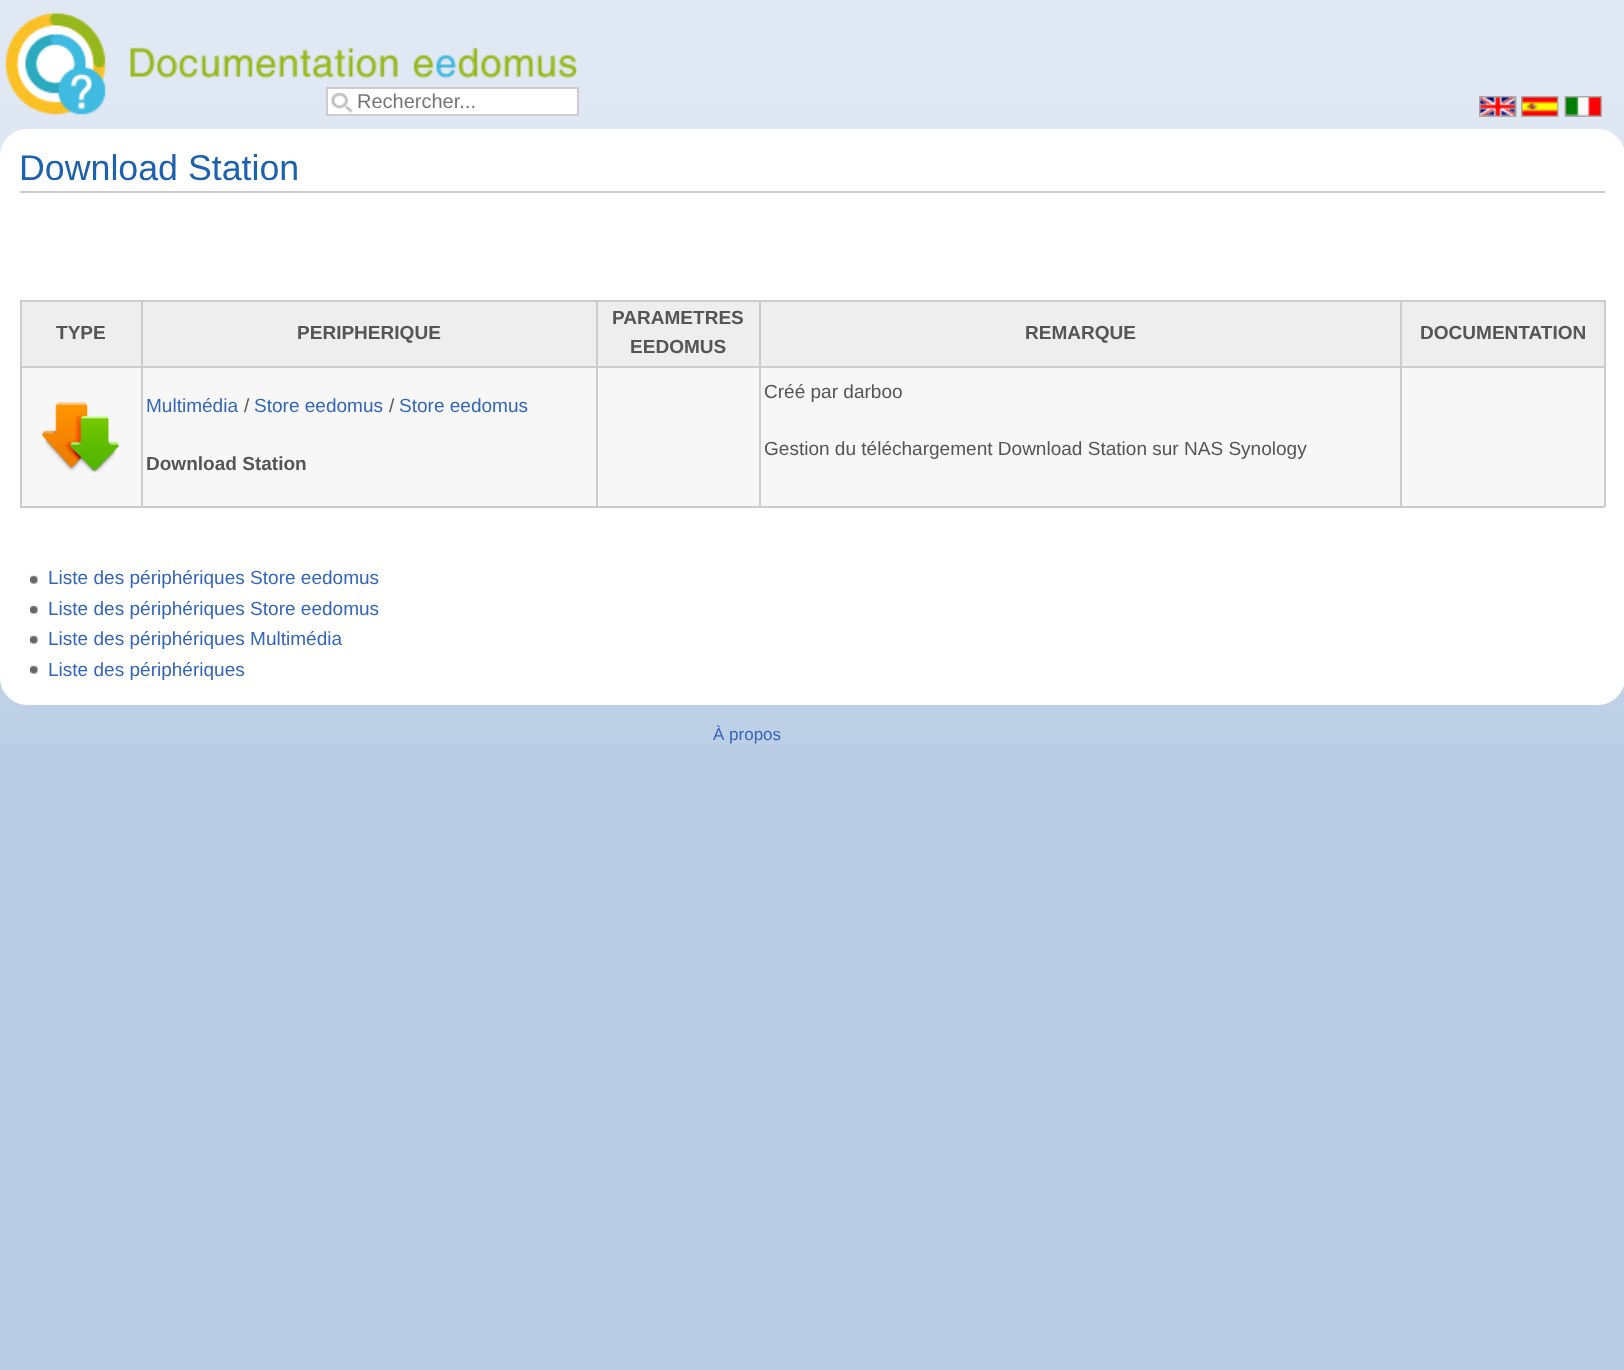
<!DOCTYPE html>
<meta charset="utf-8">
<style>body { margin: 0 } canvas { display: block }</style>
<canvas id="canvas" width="1624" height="1370"></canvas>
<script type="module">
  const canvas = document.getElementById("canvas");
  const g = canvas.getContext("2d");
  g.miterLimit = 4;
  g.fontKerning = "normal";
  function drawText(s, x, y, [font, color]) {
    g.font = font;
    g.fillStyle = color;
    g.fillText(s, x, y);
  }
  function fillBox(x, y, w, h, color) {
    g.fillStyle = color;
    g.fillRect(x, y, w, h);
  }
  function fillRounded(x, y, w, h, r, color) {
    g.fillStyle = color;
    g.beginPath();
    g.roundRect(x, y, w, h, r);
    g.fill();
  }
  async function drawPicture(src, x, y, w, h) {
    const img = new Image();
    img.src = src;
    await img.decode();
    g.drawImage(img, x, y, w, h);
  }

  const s1 = ["20px Liberation Sans", "#757575"];
  const s2 = ["35.75px Liberation Sans", "#1C62AF"];
  const s3 = ["bold 19.05px Liberation Sans", "#555555"];
  const s4 = ["19.05px Liberation Sans", "#3366BB"];
  const s5 = ["19.05px Liberation Sans", "#555555"];
  const s6 = ["17px Liberation Sans", "#3366BB"];

  fillBox(0, 0, 1624, 1370, "#B8CCE4");
  await drawPicture("pic1.png", 0, 0, 1624, 745);
  await drawPicture("pic2.png", 5, 13, 573, 102);
  fillBox(328, 89, 249, 25, "#FFFFFF");
  await drawPicture("pic3.png", 331, 92, 22, 21);
  g.strokeStyle = "#CCCCCC";
  g.lineWidth = 2;
  g.strokeRect(327, 88, 251, 27);
  drawText("Rechercher...", 357, 108, s1);
  await drawPicture("pic4.png", 1479, 96, 38, 21);
  await drawPicture("pic5.png", 1521, 96, 38, 21);
  await drawPicture("pic6.png", 1564, 96, 38, 21);
  fillRounded(0, 129, 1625, 576, 27, "#FFFFFF");
  fillBox(20, 191, 1585, 2, "#CCCCCC");
  drawText("Download Station", 19, 180, s2);
  fillBox(22, 368, 1582, 138, "#F7F7F7");
  fillBox(20, 300, 1585, 2, "#CCCCCC");
  fillBox(1604, 300, 2, 207, "#CCCCCC");
  fillBox(20, 506, 1585, 2, "#CCCCCC");
  fillBox(20, 300, 2, 207, "#CCCCCC");
  fillBox(22, 302, 119, 64, "#EEEEEE");
  drawText("TYPE", 56, 339, s3);
  fillBox(143, 302, 453, 64, "#EEEEEE");
  fillBox(1400, 366, 205, 2, "#CCCCCC");
  fillBox(1400, 366, 2, 141, "#CCCCCC");
  fillBox(759, 366, 642, 2, "#CCCCCC");
  fillBox(759, 366, 2, 141, "#CCCCCC");
  fillBox(596, 366, 165, 2, "#CCCCCC");
  fillBox(596, 366, 2, 141, "#CCCCCC");
  fillBox(141, 366, 456, 2, "#CCCCCC");
  fillBox(141, 366, 2, 141, "#CCCCCC");
  fillBox(20, 366, 123, 2, "#CCCCCC");
  fillBox(141, 300, 2, 68, "#CCCCCC");
  drawText("PERIPHERIQUE", 297, 339, s3);
  fillBox(598, 302, 161, 64, "#EEEEEE");
  fillBox(596, 300, 2, 68, "#CCCCCC");
  drawText("PARAMETRES", 612, 324, s3);
  drawText("EEDOMUS", 630, 353, s3);
  fillBox(761, 302, 639, 64, "#EEEEEE");
  fillBox(759, 300, 2, 68, "#CCCCCC");
  drawText("REMARQUE", 1025, 339, s3);
  fillBox(1402, 302, 202, 64, "#EEEEEE");
  fillBox(1400, 300, 2, 68, "#CCCCCC");
  drawText("DOCUMENTATION", 1420, 339, s3);
  await drawPicture("pic7.png", 42, 402, 78, 71);
  drawText("Multimédia", 146, 412, s4);
  drawText("/", 244, 412, s5);
  drawText("Store eedomus", 254, 412, s4);
  drawText("/", 389, 412, s5);
  drawText("Store eedomus", 399, 412, s4);
  drawText("Download Station", 146, 470, s3);
  drawText("Créé par darboo", 764, 398, s5);
  drawText("Gestion du téléchargement Download Station sur NAS Synology", 764, 455, s5);
  await drawPicture("pic8.png", 30, 575, 8, 9);
  drawText("Liste des périphériques Store eedomus", 48, 584, s4);
  await drawPicture("pic8.png", 30, 605, 8, 9);
  drawText("Liste des périphériques Store eedomus", 48, 615, s4);
  await drawPicture("pic8.png", 30, 635, 8, 9);
  drawText("Liste des périphériques Multimédia", 48, 645, s4);
  await drawPicture("pic8.png", 30, 665, 8, 9);
  drawText("Liste des périphériques", 48, 676, s4);
  drawText("À propos", 713, 740, s6);
</script>
